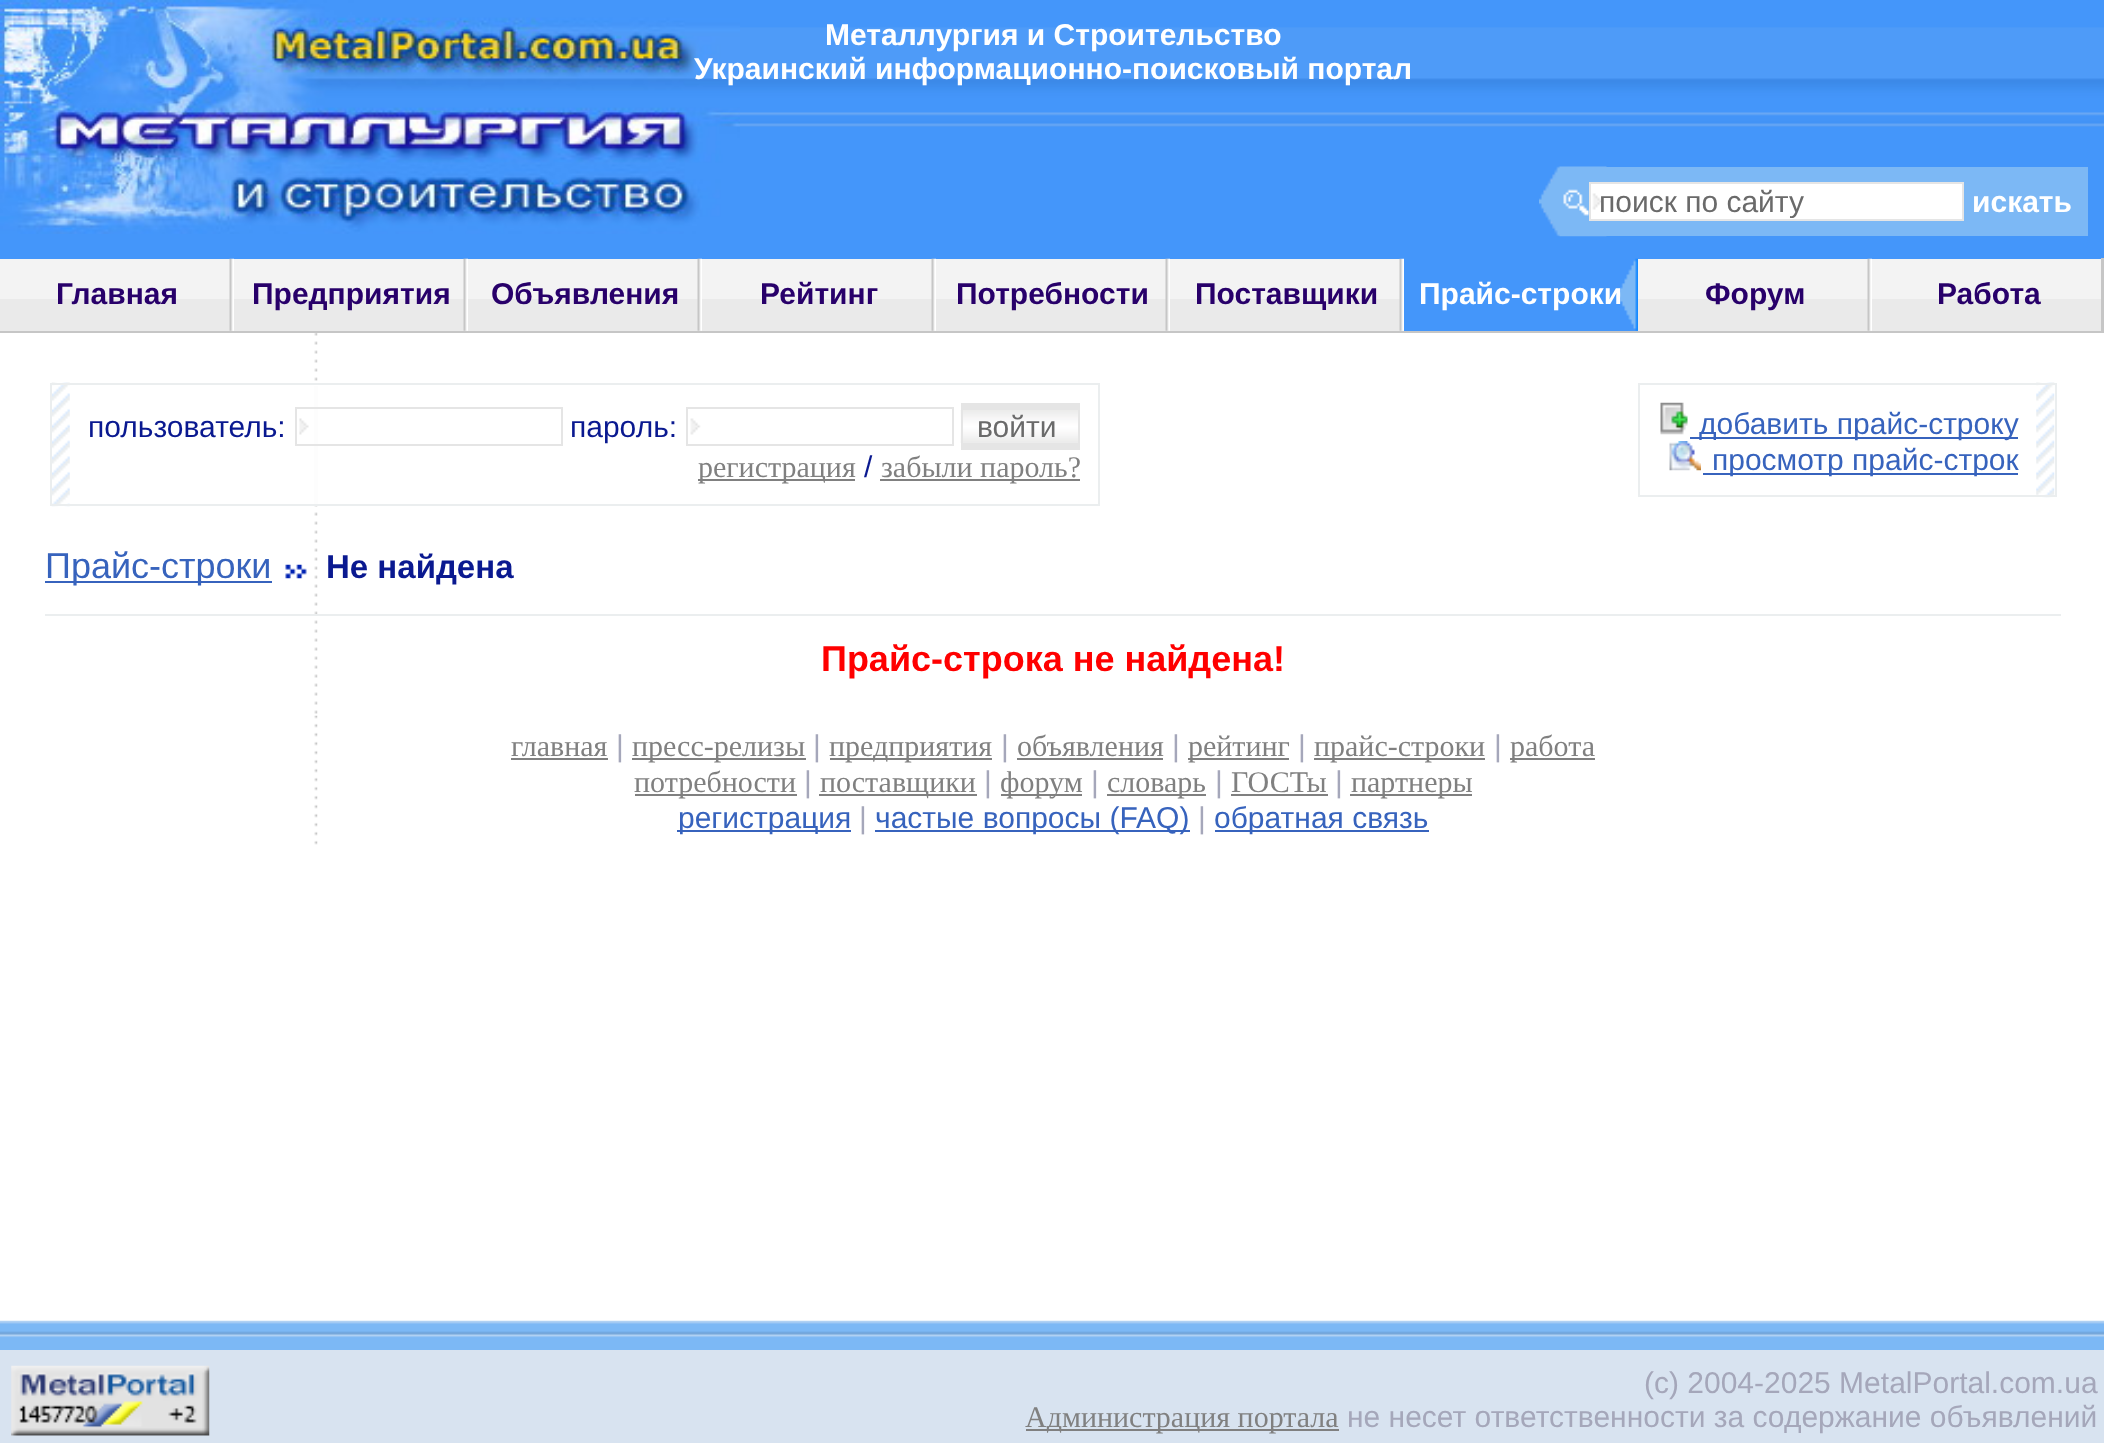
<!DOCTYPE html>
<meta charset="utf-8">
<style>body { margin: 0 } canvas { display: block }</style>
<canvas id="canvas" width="2104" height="1443"></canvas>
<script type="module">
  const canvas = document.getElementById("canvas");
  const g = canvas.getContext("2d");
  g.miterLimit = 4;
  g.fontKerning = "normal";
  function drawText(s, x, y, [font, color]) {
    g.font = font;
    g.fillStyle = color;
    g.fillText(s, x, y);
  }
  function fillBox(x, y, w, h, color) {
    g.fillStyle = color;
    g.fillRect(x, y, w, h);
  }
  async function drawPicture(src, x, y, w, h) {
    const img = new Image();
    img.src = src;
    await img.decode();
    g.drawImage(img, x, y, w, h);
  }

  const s1 = ["bold 30px Liberation Sans", "#FFFFFF"];
  const s2 = ["30px Liberation Sans", "#6A6A6A"];
  const s3 = ["bold 30px Liberation Sans", "#28006A"];
  const s4 = ["30px Liberation Sans", "#0A1990"];
  const s5 = ["30px Liberation Serif", "#808080"];
  const s6 = ["30px Liberation Sans", "#3763BD"];
  const s7 = ["36px Liberation Sans", "#3763BD"];
  const s8 = ["bold 33px Liberation Sans", "#0A1990"];
  const s9 = ["bold 36px Liberation Sans", "#FF0000"];
  const s10 = ["30px Liberation Sans", "#A5A7BA"];

  fillBox(0, 0, 2104, 1443, "#FFFFFF");
  fillBox(0, 0, 2104, 259, "#4496FA");
  await drawPicture("pic1.png", 740, 27, 1364, 100);
  await drawPicture("pic2.png", 0, 0, 740, 234);
  drawText("Металлургия и Строительство", 825, 45, s1);
  drawText("Украинский информационно-поисковый портал", 694, 79, s1);
  fillBox(1606, 167, 482, 69, "#7CB8F5");
  await drawPicture("pic3.png", 1539, 166, 68, 71);
  fillBox(1591, 184, 371, 35, "#FFFFFF");
  await drawPicture("pic4.png", 1592, 193, 11, 17);
  g.strokeStyle = "#E5E5E5";
  g.lineWidth = 2;
  g.strokeRect(1590, 183, 373, 37);
  g.save();
  g.beginPath();
  g.rect(1600, 185, 362, 33);
  g.clip();
  drawText("поиск по сайту", 1599, 212, s2);
  g.restore();
  drawText("искать", 1972, 212, s1);
  fillBox(0, 259, 2101, 40, "#F3F3F3");
  fillBox(0, 299, 2101, 32, "#EAEAEA");
  fillBox(0, 331, 2104, 2, "#C6C6C6");
  await drawPicture("pic5.png", 229, 258, 5, 73);
  drawText("Главная", 56, 304, s3);
  await drawPicture("pic5.png", 463, 258, 5, 73);
  drawText("Предприятия", 252, 304, s3);
  await drawPicture("pic5.png", 697, 258, 5, 73);
  drawText("Объявления", 491, 304, s3);
  await drawPicture("pic5.png", 931, 258, 5, 73);
  drawText("Рейтинг", 760, 304, s3);
  await drawPicture("pic5.png", 1165, 258, 5, 73);
  drawText("Потребности", 956, 304, s3);
  await drawPicture("pic5.png", 1399, 258, 5, 73);
  drawText("Поставщики", 1195, 304, s3);
  fillBox(1404, 259, 234, 72, "#4496FA");
  await drawPicture("pic6.png", 1617, 258, 21, 73);
  drawText("Прайс-строки", 1419, 304, s1);
  await drawPicture("pic5.png", 1867, 258, 5, 73);
  drawText("Форум", 1705, 304, s3);
  fillBox(2101, 258, 3, 73, "#C6C6C6");
  drawText("Работа", 1937, 304, s3);
  await drawPicture("pic7.png", 314, 333, 4, 381);
  fillBox(314, 386, 4, 118, "#FDFDFD");
  await drawPicture("pic8.png", 51, 382, 19, 125);
  g.strokeStyle = "#EBEEEF";
  g.strokeRect(51, 384, 1048, 121);
  drawText("пользователь:", 88, 437, s4);
  await drawPicture("pic9.png", 299, 418, 10, 17);
  g.strokeStyle = "#E5E5E5";
  g.strokeRect(296, 408, 266, 37);
  drawText("пароль:", 570, 437, s4);
  await drawPicture("pic10.png", 690, 418, 11, 17);
  g.strokeRect(687, 408, 266, 37);
  fillBox(963, 405, 115, 43, "#E5E5E5");
  await drawPicture("pic11.png", 960, 410, 118, 33);
  g.strokeRect(962, 404, 117, 45);
  drawText("войти", 977, 437, s2);
  fillBox(698, 479, 157, 2, "#808080");
  drawText("регистрация", 698, 477, s5);
  drawText("/", 864, 477, s4);
  fillBox(880, 479, 200, 2, "#808080");
  drawText("забыли пароль?", 881, 477, s5);
  await drawPicture("pic12.png", 2036, 382, 19, 116);
  g.strokeStyle = "#EBEEEF";
  g.strokeRect(1639, 384, 417, 112);
  await drawPicture("pic13.png", 1660, 402, 28, 33);
  fillBox(1690, 437, 328, 2, "#3763BD");
  drawText("добавить прайс-строку", 1699, 434, s6);
  await drawPicture("pic14.png", 1669, 441, 32, 30);
  fillBox(1703, 473, 315, 2, "#3763BD");
  drawText("просмотр прайс-строк", 1712, 470, s6);
  fillBox(45, 581, 227, 2, "#3763BD");
  drawText("Прайс-строки", 45, 578, s7);
  await drawPicture("pic15.png", 285, 564, 22, 15);
  drawText("Не найдена", 326, 578, s8);
  fillBox(45, 614, 2016, 2, "#EBEEEF");
  drawText("Прайс-строка не найдена!", 821, 671, s9);
  await drawPicture("pic16.png", 314, 715, 4, 130);
  drawText("главная", 511, 756, s5);
  fillBox(511, 758, 97, 2, "#808080");
  drawText("|", 616, 756, s10);
  fillBox(632, 758, 174, 2, "#808080");
  drawText("пресс-релизы", 632, 756, s5);
  drawText("|", 813, 756, s10);
  fillBox(830, 758, 162, 2, "#808080");
  drawText("предприятия", 829, 756, s5);
  drawText("|", 1001, 756, s10);
  drawText("объявления", 1017, 756, s5);
  fillBox(1017, 758, 146, 2, "#808080");
  drawText("|", 1172, 756, s10);
  fillBox(1188, 758, 101, 2, "#808080");
  drawText("рейтинг", 1188, 756, s5);
  drawText("|", 1298, 756, s10);
  fillBox(1314, 758, 171, 2, "#808080");
  drawText("прайс-строки", 1314, 756, s5);
  drawText("|", 1494, 756, s10);
  fillBox(1510, 758, 85, 2, "#808080");
  drawText("работа", 1510, 756, s5);
  fillBox(635, 794, 162, 2, "#808080");
  drawText("потребности", 634, 792, s5);
  drawText("|", 804, 792, s10);
  fillBox(819, 794, 158, 2, "#808080");
  drawText("поставщики", 820, 792, s5);
  drawText("|", 984, 792, s10);
  fillBox(1001, 794, 81, 2, "#808080");
  drawText("форум", 1000, 792, s5);
  drawText("|", 1091, 792, s10);
  fillBox(1107, 794, 99, 2, "#808080");
  drawText("словарь", 1107, 792, s5);
  drawText("|", 1215, 792, s10);
  drawText("ГОСТы", 1231, 792, s5);
  fillBox(1231, 794, 97, 2, "#808080");
  drawText("|", 1335, 792, s10);
  fillBox(1350, 794, 122, 2, "#808080");
  drawText("партнеры", 1351, 792, s5);
  fillBox(677, 830, 174, 2, "#3763BD");
  drawText("регистрация", 678, 828, s6);
  drawText("|", 859, 828, s10);
  fillBox(875, 830, 315, 2, "#3763BD");
  drawText("частые вопросы (FAQ)", 875, 828, s6);
  drawText("|", 1198, 828, s10);
  fillBox(1215, 830, 214, 2, "#3763BD");
  drawText("обратная связь", 1214, 828, s6);
  fillBox(0, 1350, 2104, 93, "#D8E3F0");
  await drawPicture("pic17.png", 0, 1320, 2104, 30);
  await drawPicture("pic18.png", 11, 1365, 199, 71);
  drawText("(c) 2004-2025 MetalPortal.com.ua", 1644, 1393, s10);
  fillBox(1026, 1429, 313, 2, "#808080");
  drawText("Администрация портала", 1025, 1427, s5);
  drawText("не несет ответственности за содержание объявлений", 1347, 1427, s10);
</script>
